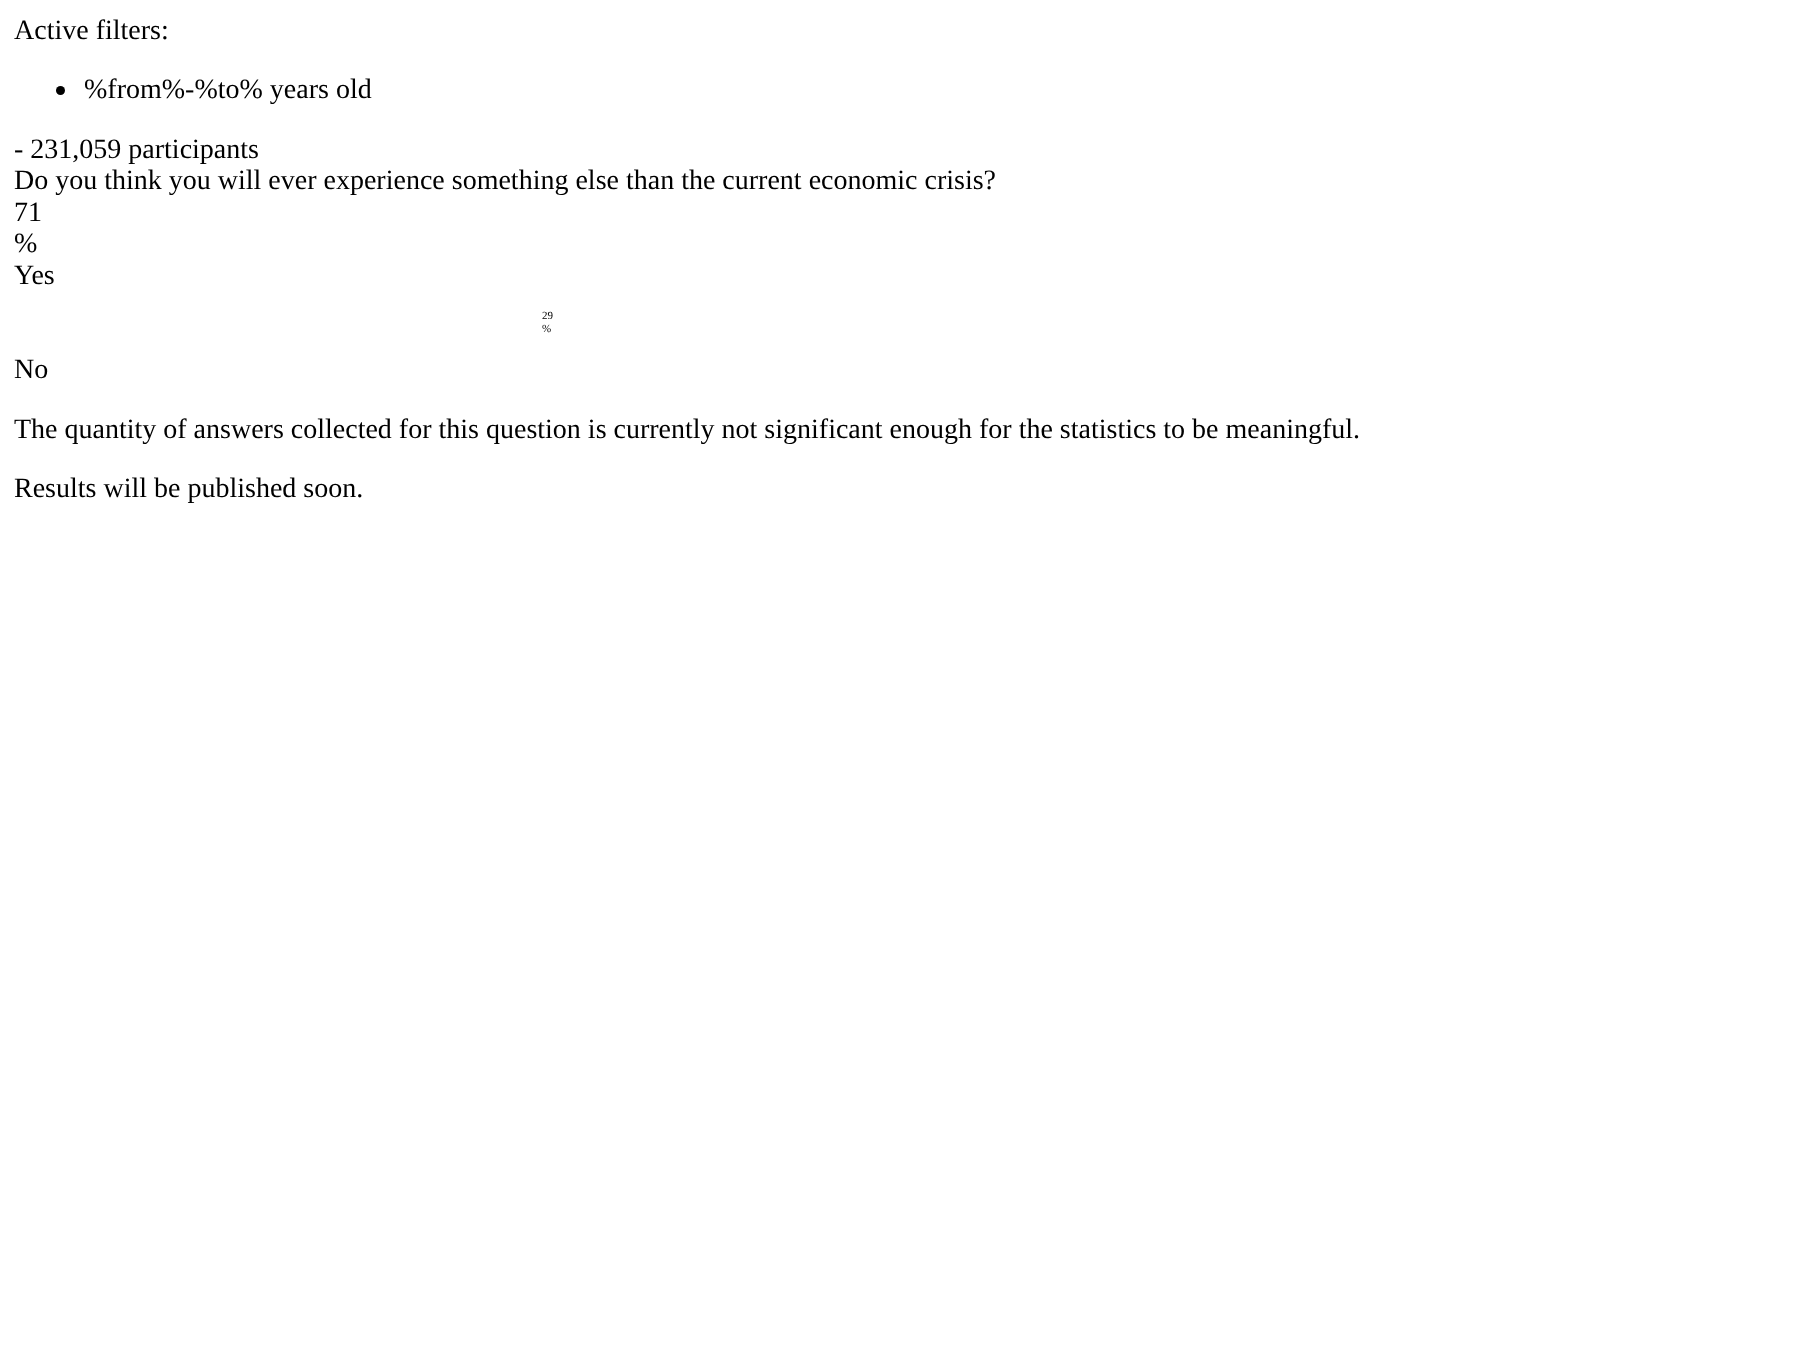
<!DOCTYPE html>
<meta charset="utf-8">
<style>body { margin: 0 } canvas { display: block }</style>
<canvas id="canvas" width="1817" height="1355"></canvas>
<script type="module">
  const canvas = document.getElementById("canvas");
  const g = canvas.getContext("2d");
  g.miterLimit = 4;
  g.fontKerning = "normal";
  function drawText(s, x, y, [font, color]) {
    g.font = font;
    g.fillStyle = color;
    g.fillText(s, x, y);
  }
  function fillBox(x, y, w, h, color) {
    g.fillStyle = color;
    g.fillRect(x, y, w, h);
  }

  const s1 = ["28px Liberation Serif", "#000000"];
  const s2 = ["11px Liberation Serif", "#000000"];

  fillBox(0, 0, 1817, 1355, "#FFFFFF");
  drawText("Active filters:", 14, 39, s1);
  g.beginPath();
  g.arc(60.5, 90.5, 4.5, 0, Math.PI * 2);
  g.fill();
  drawText("%from%-%to% years old", 84, 98, s1);
  drawText("- 231,059 participants", 14, 158, s1);
  drawText("Do you think you will ever experience something else than the current economic crisis?", 14, 189, s1);
  drawText("71", 14, 221, s1);
  drawText("%", 14, 252, s1);
  drawText("Yes", 14, 284, s1);
  drawText("29", 542, 319, s2);
  drawText("%", 542, 332, s2);
  drawText("No", 14, 378, s1);
  drawText("The quantity of answers collected for this question is currently not significant enough for the statistics to be meaningful.", 14, 438, s1);
  drawText("Results will be published soon.", 14, 497, s1);
</script>
